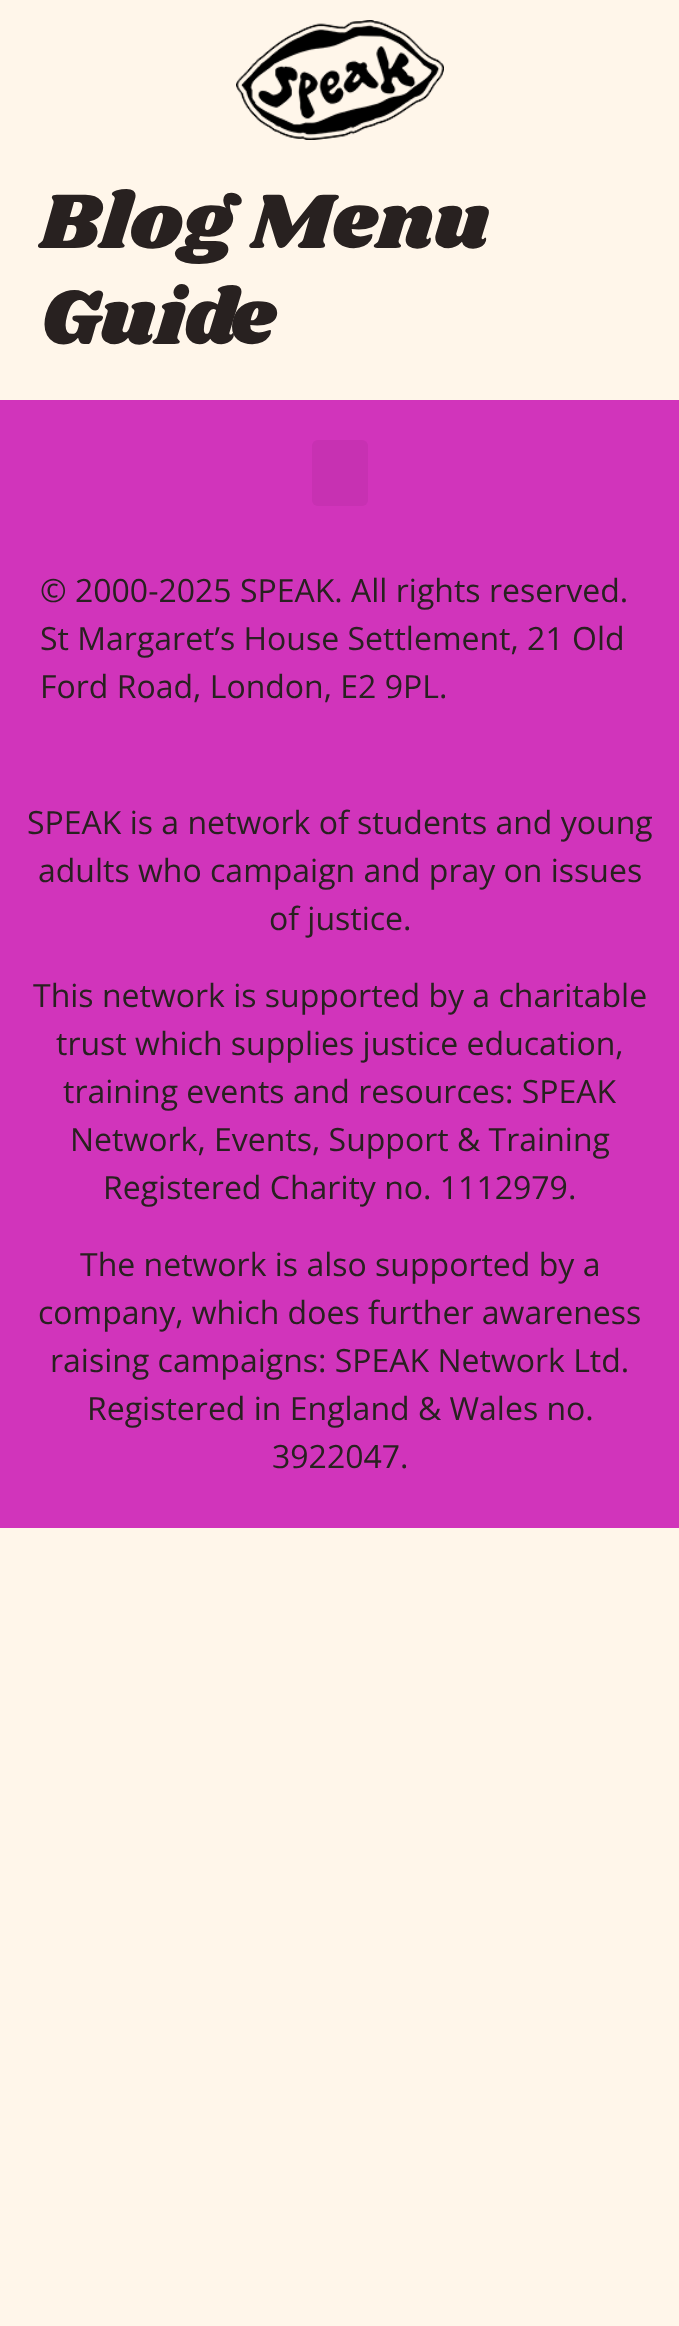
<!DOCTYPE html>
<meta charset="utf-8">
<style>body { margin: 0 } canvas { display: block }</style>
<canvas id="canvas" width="679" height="2326"></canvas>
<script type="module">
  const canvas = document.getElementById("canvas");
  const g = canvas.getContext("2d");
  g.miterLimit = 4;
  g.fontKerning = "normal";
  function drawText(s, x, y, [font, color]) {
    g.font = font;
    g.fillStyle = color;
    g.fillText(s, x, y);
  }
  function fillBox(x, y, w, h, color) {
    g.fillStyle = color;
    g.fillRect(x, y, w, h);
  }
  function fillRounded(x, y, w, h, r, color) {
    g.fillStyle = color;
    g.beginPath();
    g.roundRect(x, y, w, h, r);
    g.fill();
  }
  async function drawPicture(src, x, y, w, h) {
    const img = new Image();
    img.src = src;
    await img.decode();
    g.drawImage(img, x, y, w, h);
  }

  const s1 = ["80px Shrikhand", "#282120"];
  const s2 = ["32px Open Sans", "#282120"];

  fillBox(0, 0, 679, 2326, "#FFF6EA");
  await drawPicture("pic1.png", 236, 20, 208, 120);
  drawText("Blog Menu", 40, 248, s1);
  drawText("Guide", 40, 344, s1);
  fillBox(0, 400, 679, 1128, "#D134BB");
  fillRounded(312, 440, 56, 66, 6, "#C731B2");
  drawText("© 2000-2025 SPEAK. All rights reserved.", 40, 602, s2);
  drawText("St Margaret’s House Settlement, 21 Old", 40, 650, s2);
  drawText("Ford Road, London, E2 9PL.", 40, 698, s2);
  drawText("SPEAK is a network of students and young", 27, 834, s2);
  drawText("adults who campaign and pray on issues", 38, 882, s2);
  drawText("of justice.", 269, 930, s2);
  drawText("This network is supported by a charitable", 33, 1007, s2);
  drawText("trust which supplies justice education,", 56, 1055, s2);
  drawText("training events and resources: SPEAK", 63, 1103, s2);
  drawText("Network, Events, Support & Training", 70, 1151, s2);
  drawText("Registered Charity no. 1112979.", 103, 1199, s2);
  drawText("The network is also supported by a", 80, 1276, s2);
  drawText("company, which does further awareness", 38, 1324, s2);
  drawText("raising campaigns: SPEAK Network Ltd.", 50, 1372, s2);
  drawText("Registered in England & Wales no.", 87, 1420, s2);
  drawText("3922047.", 272, 1468, s2);
</script>
